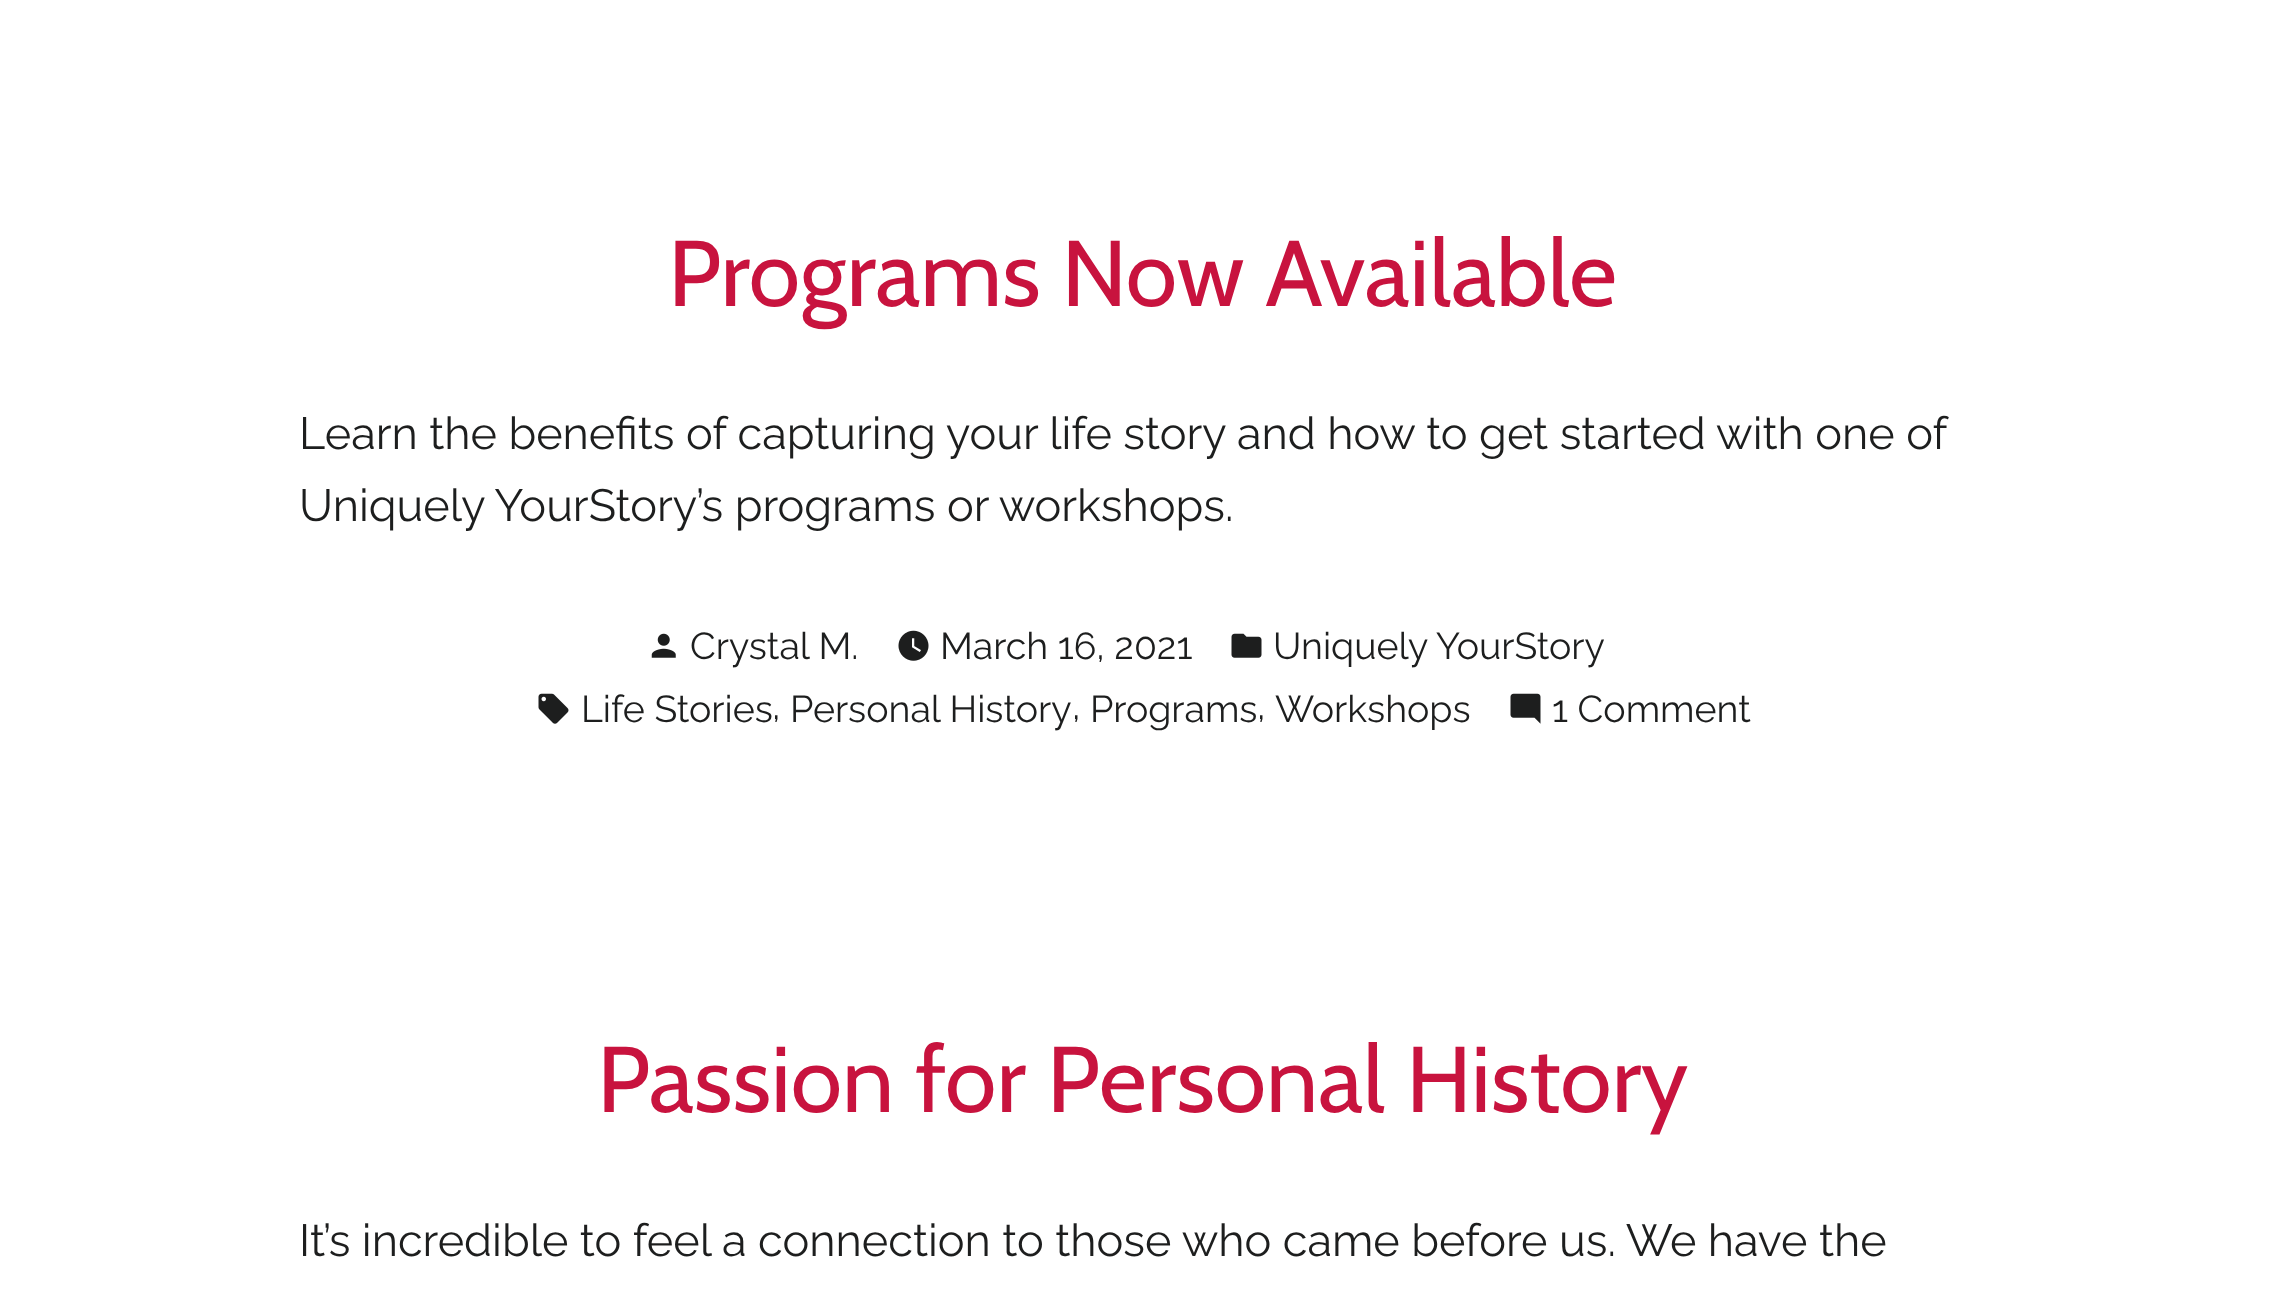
<!DOCTYPE html>
<meta charset="utf-8">
<style>body { margin: 0 } canvas { display: block }</style>
<canvas id="canvas" width="2284" height="1295"></canvas>
<script type="module">
  const canvas = document.getElementById("canvas");
  const g = canvas.getContext("2d");
  g.miterLimit = 4;
  g.fontKerning = "normal";
  function drawText(s, x, y, [font, color]) {
    g.font = font;
    g.fillStyle = color;
    g.fillText(s, x, y);
  }
  function fillBox(x, y, w, h, color) {
    g.fillStyle = color;
    g.fillRect(x, y, w, h);
  }
  async function drawPicture(src, x, y, w, h) {
    const img = new Image();
    img.src = src;
    await img.decode();
    g.drawImage(img, x, y, w, h);
  }

  const s1 = ["93.25px Cabin", "#C8133E"];
  const s2 = ["45px Raleway", "#1D1E1E"];
  const s3 = ["37.5px Raleway", "#1D1E1E"];

  fillBox(0, 0, 2284, 1295, "#FFFFFF");
  drawText("Programs Now Available", 668, 306, s1);
  drawText("Learn the benefits of capturing your life story and how to get started with one of", 299, 449, s2);
  drawText("Uniquely YourStory’s programs or workshops.", 299, 521, s2);
  await drawPicture("pic1.png", 651, 633, 25, 25);
  drawText("Crystal M.", 690, 659, s3);
  await drawPicture("pic2.png", 898, 630, 31, 31);
  drawText("March 16, 2021", 940, 659, s3);
  await drawPicture("pic3.png", 1231, 633, 31, 25);
  drawText("Uniquely YourStory", 1273, 659, s3);
  await drawPicture("pic4.png", 538, 693, 31, 31);
  drawText("Life Stories", 581, 722, s3);
  drawText(",", 772, 719, s3);
  drawText("Personal History", 790, 722, s3);
  drawText(",", 1072, 719, s3);
  drawText("Programs", 1090, 722, s3);
  drawText(",", 1257, 719, s3);
  drawText("Workshops", 1275, 722, s3);
  await drawPicture("pic5.png", 1510, 693, 31, 31);
  drawText("1 Comment", 1552, 722, s3);
  drawText("Passion for Personal History", 597, 1112, s1);
  drawText("It’s incredible to feel a connection to those who came before us. We have the", 299, 1256, s2);
</script>
